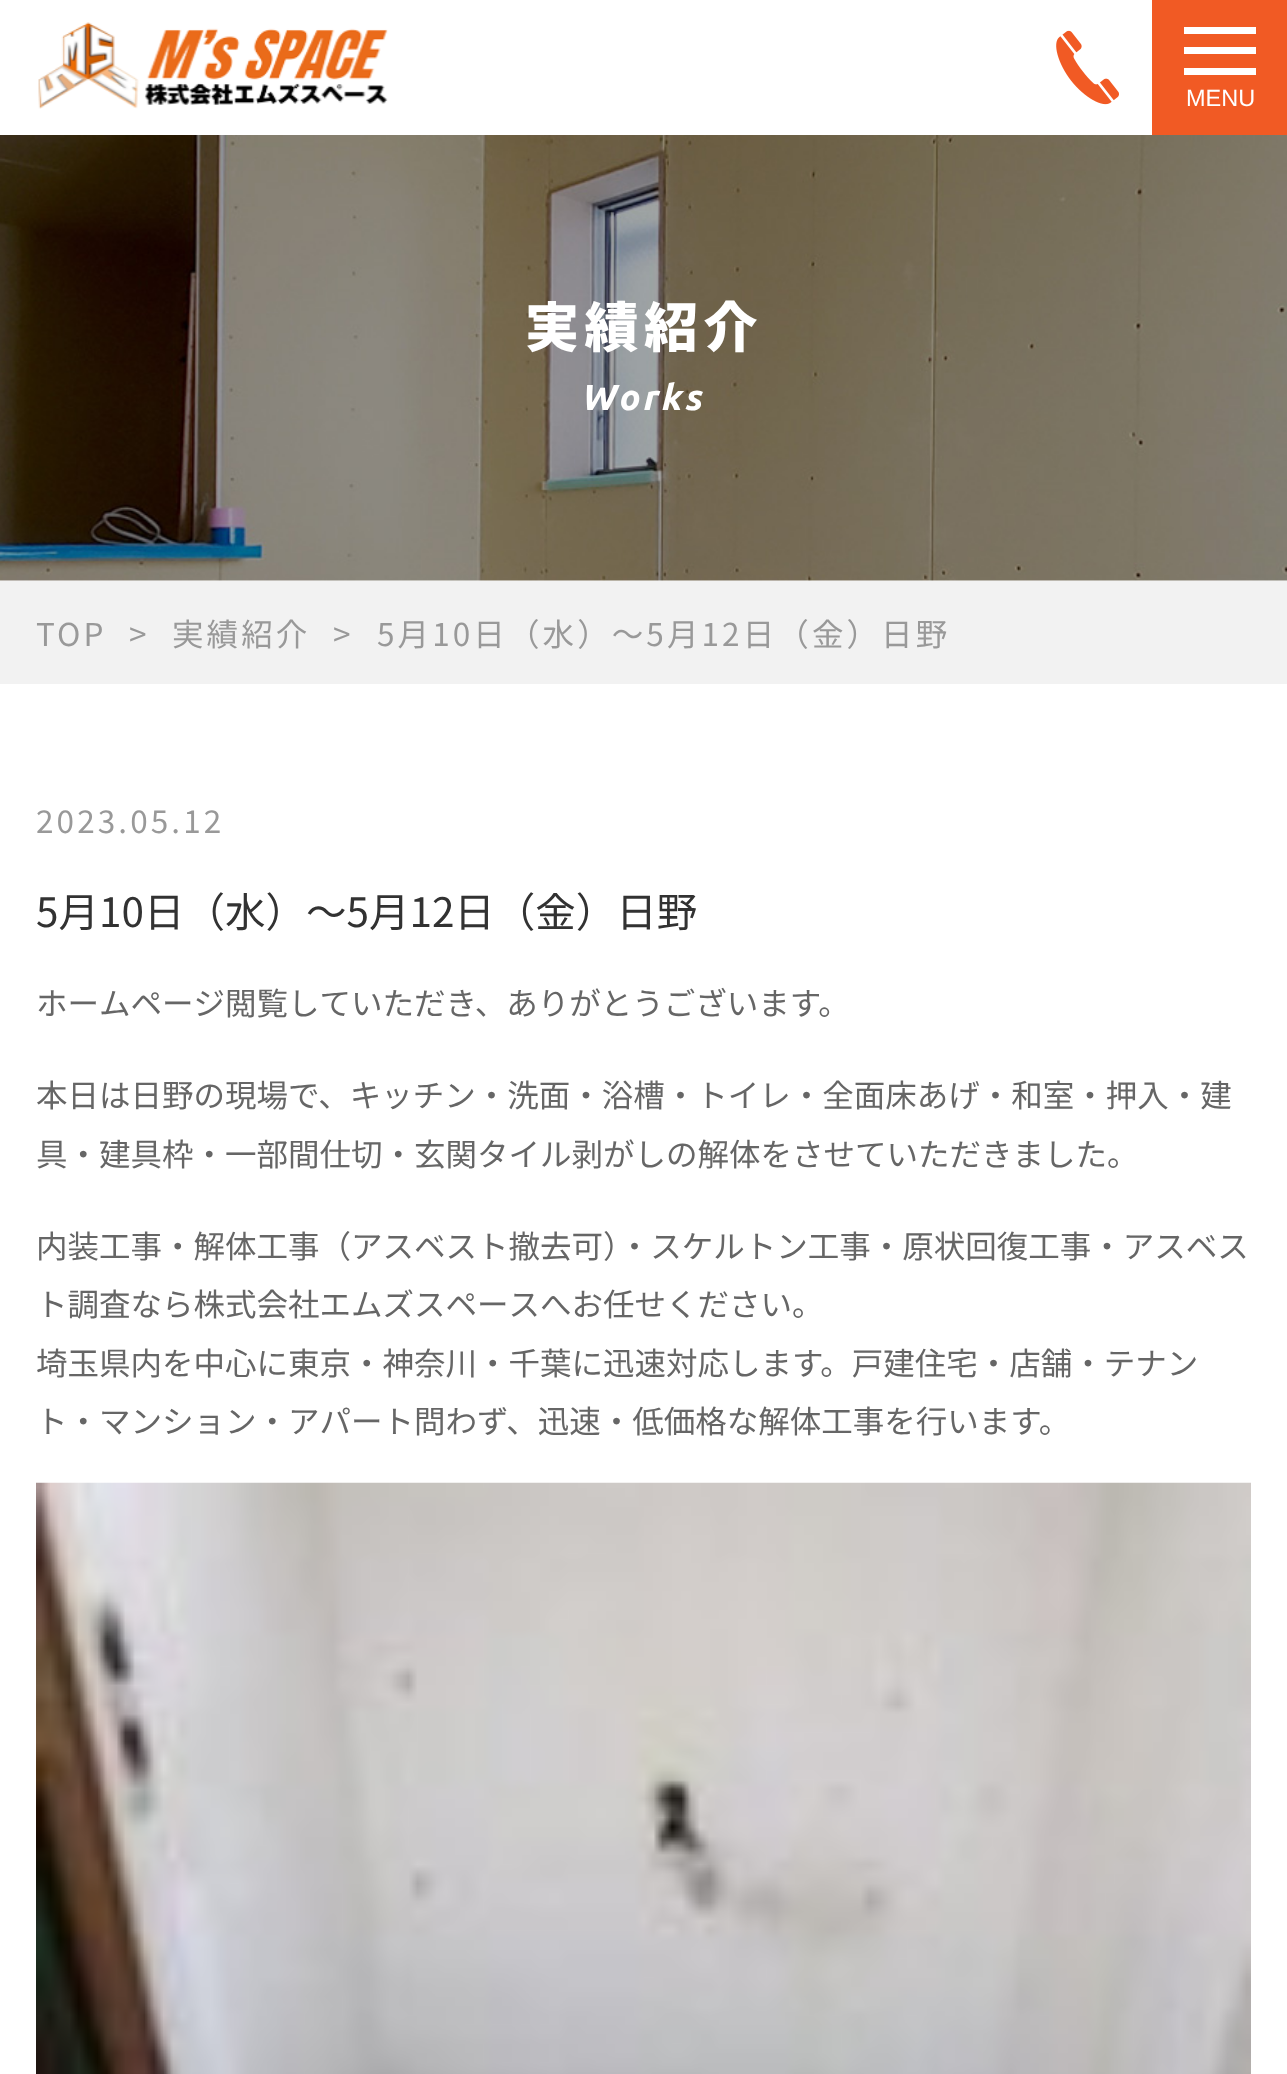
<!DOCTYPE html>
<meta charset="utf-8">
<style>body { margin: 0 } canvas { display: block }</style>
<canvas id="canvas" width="1287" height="2074"></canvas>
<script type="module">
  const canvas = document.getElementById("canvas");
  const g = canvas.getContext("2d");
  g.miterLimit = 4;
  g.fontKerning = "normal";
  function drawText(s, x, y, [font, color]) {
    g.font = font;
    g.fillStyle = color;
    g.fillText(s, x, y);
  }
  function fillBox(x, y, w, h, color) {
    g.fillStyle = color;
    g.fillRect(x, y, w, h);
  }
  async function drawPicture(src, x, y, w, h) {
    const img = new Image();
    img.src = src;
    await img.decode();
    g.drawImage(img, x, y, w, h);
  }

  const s1 = ["23.5px Liberation Sans", "#FFFFFF"];
  const s2 = ["900 54px Noto Sans JP", "#FFFFFF"];
  const s3 = ["italic bold 36px Ubuntu", "#FFFFFF"];
  const s4 = ["31.5px Noto Sans JP", "#999999"];
  const s5 = ["40.5px Noto Sans JP", "#323232"];
  const s6 = ["31.5px Noto Sans JP", "#666666"];

  fillBox(0, 0, 1287, 2074, "#FFFFFF");
  fillBox(1152, 0, 135, 135, "#F15A24");
  fillBox(1184, 27, 72, 7, "#FFFFFF");
  fillBox(1184, 47, 72, 7, "#FFFFFF");
  fillBox(1184, 68, 72, 7, "#FFFFFF");
  drawText("MENU", 1186, 106, s1);
  await drawPicture("pic1.png", 38, 22, 350, 87);
  await drawPicture("pic2.png", 1056, 30, 63, 75);
  await drawPicture("pic3.png", 0, 135, 1287, 446);
  g.letterSpacing = "5.5px";
  drawText("実績紹介", 525, 347, s2);
  g.letterSpacing = "3.5px";
  drawText("Works", 581, 410, s3);
  fillBox(0, 581, 1287, 103, "#F2F2F2");
  g.letterSpacing = "3.1px";
  drawText("TOP", 36, 646, s4);
  drawText(">", 129, 646, s4);
  drawText("実績紹介", 172, 646, s4);
  drawText(">", 333, 646, s4);
  drawText("5月10日（水）〜5月12日（金）日野", 377, 646, s4);
  drawText("2023.05.12", 36, 833, s4);
  g.letterSpacing = "0px";
  drawText("5月10日（水）〜5月12日（金）日野", 36, 927, s5);
  drawText("ホームページ閲覧していただき、ありがとうございます。", 36, 1015, s6);
  drawText("本日は日野の現場で、キッチン・洗面・浴槽・トイレ・全面床あげ・和室・押入・建", 36, 1107, s6);
  drawText("具・建具枠・一部間仕切・玄関タイル剥がしの解体をさせていただきました。", 36, 1166, s6);
  drawText("内装工事・解体工事（アスベスト撤去可）・スケルトン工事・原状回復工事・アスベス", 36, 1258, s6);
  drawText("ト調査なら株式会社エムズスペースへお任せください。", 36, 1316, s6);
  drawText("埼玉県内を中心に東京・神奈川・千葉に迅速対応します。戸建住宅・店舗・テナン", 36, 1375, s6);
  drawText("ト・マンション・アパート問わず、迅速・低価格な解体工事を行います。", 36, 1433, s6);
  await drawPicture("pic4.png", 36, 1482, 1215, 592);
</script>
